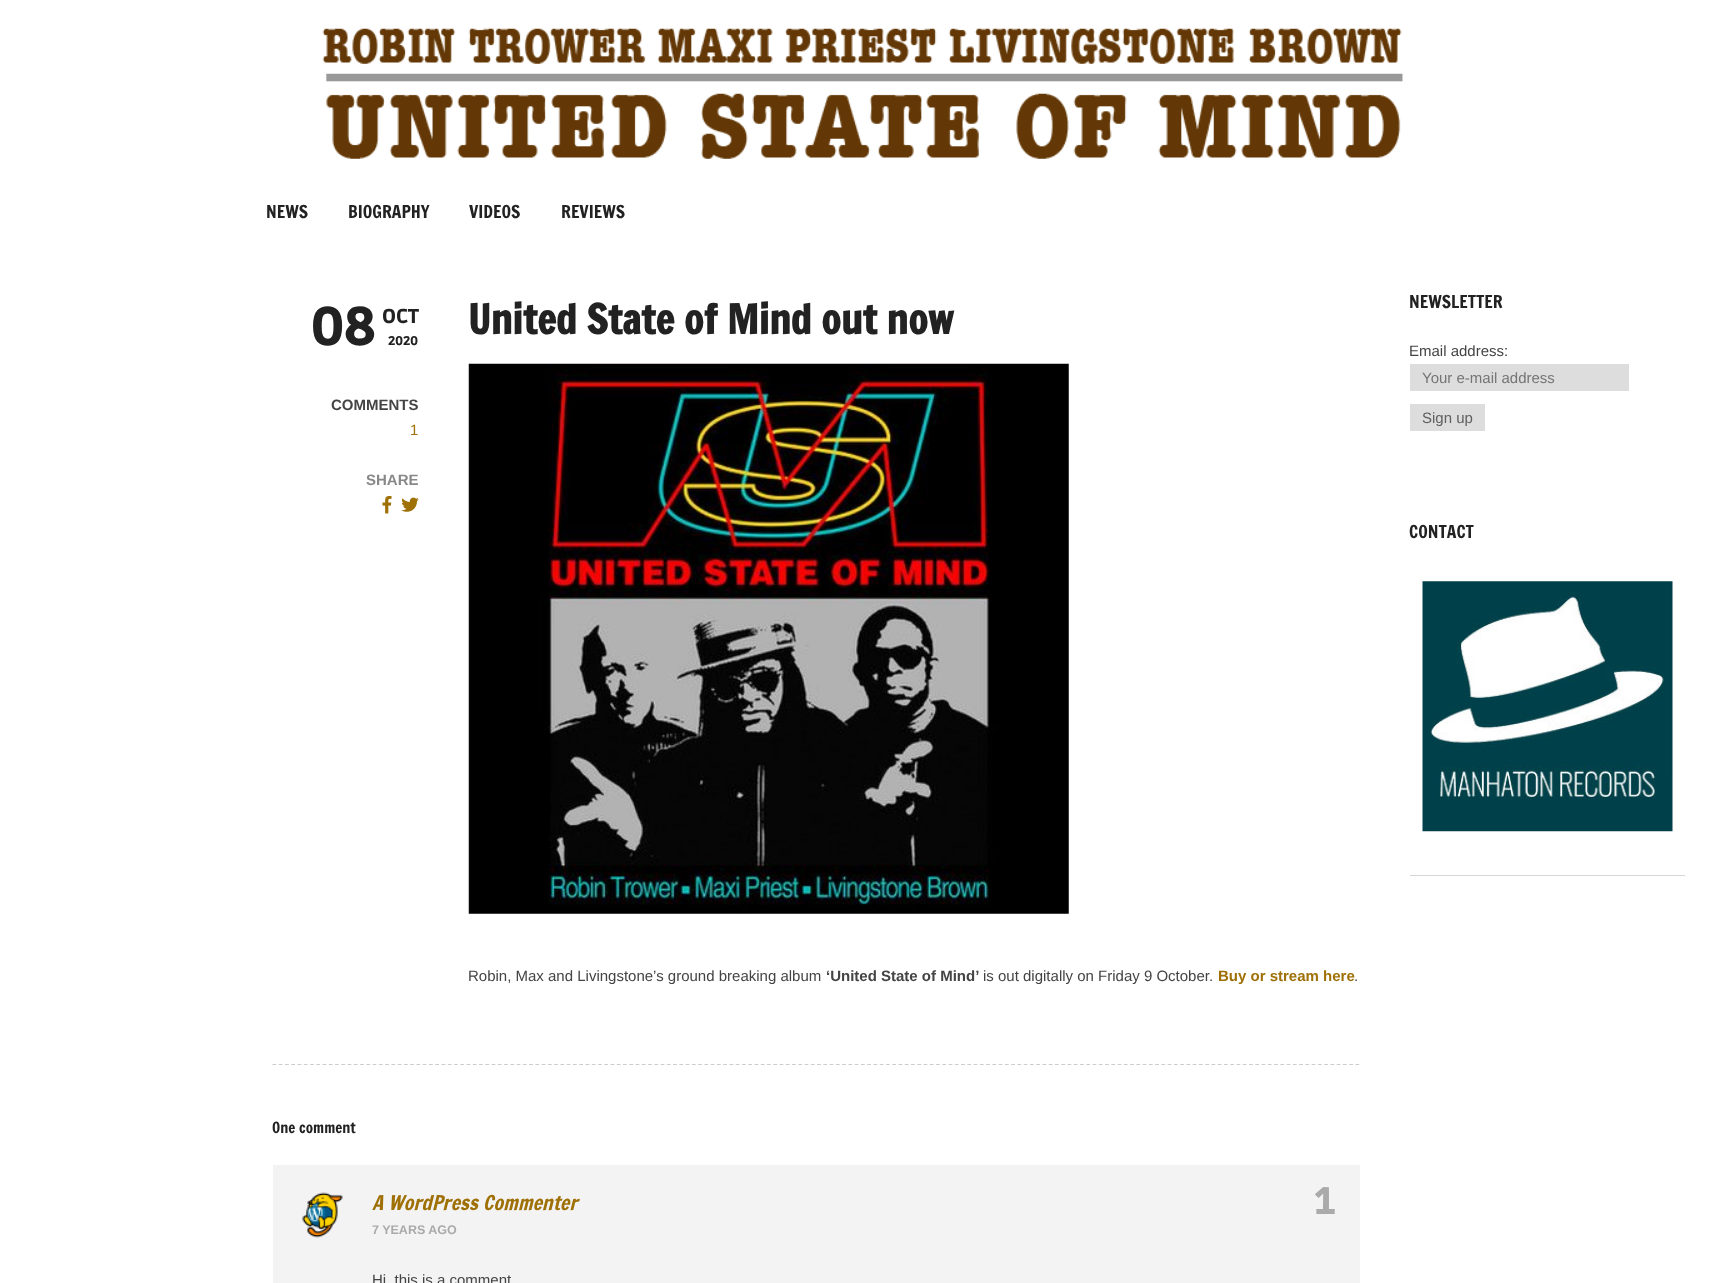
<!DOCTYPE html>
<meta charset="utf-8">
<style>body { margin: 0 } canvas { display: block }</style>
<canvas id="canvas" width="1718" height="1283"></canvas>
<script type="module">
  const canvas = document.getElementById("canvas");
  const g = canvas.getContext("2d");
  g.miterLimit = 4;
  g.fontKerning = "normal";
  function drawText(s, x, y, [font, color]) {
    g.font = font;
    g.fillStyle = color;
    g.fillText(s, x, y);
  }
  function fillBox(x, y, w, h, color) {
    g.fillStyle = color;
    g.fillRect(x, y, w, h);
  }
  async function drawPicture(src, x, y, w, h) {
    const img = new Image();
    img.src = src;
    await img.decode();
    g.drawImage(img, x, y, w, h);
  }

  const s1 = ["17.5px Francois One", "#222222"];
  const s2 = ["900 54px Ruda", "#222222"];
  const s3 = ["900 20px Ruda", "#222222"];
  const s4 = ["900 12.5px Ruda", "#222222"];
  const s5 = ["bold 15px Liberation Sans", "#444444"];
  const s6 = ["15px Liberation Sans", "#9E7006"];
  const s7 = ["bold 15px Liberation Sans", "#888888"];
  const s8 = ["bold 40px Francois One", "#222222"];
  const s9 = ["15px Liberation Sans", "#444444"];
  const s10 = ["bold 15px Liberation Sans", "#9E7006"];
  const s11 = ["15px Francois One", "#222222"];
  const s12 = ["italic 20px Francois One", "#9E7006"];
  const s13 = ["bold 12.5px Liberation Sans", "#AAAAAA"];
  const s14 = ["900 38px Ruda", "#AAAAAA"];
  const s15 = ["15px Liberation Sans", "#757575"];
  const s16 = ["15px Liberation Sans", "#606060"];

  fillBox(0, 0, 1718, 1283, "#FFFFFF");
  await drawPicture("pic1.png", 322, 28, 1081, 131);
  drawText("NEWS", 266, 218, s1);
  drawText("BIOGRAPHY", 348, 218, s1);
  drawText("VIDEOS", 469, 218, s1);
  drawText("REVIEWS", 561, 218, s1);
  drawText("08", 311, 345, s2);
  drawText("OCT", 382, 323, s3);
  drawText("2020", 388, 345, s4);
  drawText("COMMENTS", 331, 410, s5);
  drawText("1", 410, 435, s6);
  drawText("SHARE", 366, 485, s7);
  await drawPicture("pic2.png", 382, 495, 10, 19);
  await drawPicture("pic3.png", 401, 497, 18, 15);
  drawText("United State of Mind out now", 468, 334, s8);
  await drawPicture("pic4.png", 468, 363, 601, 551);
  drawText("Robin, Max and Livingstone’s ground breaking album", 468, 981, s9);
  drawText("‘United State of Mind’", 826, 981, s5);
  drawText("is out digitally on Friday 9 October.", 983, 981, s9);
  drawText("Buy or stream here", 1218, 981, s10);
  drawText(".", 1354, 981, s9);
  g.beginPath();
  g.moveTo(272.5, 1064.5);
  g.lineTo(1360, 1064.5);
  g.strokeStyle = "#CCCCCC";
  g.lineWidth = 1.2;
  g.setLineDash([3.75, 2.51]);
  g.stroke();
  drawText("One comment", 272, 1133, s11);
  fillBox(273, 1165, 1087, 118, "#F3F3F3");
  await drawPicture("pic5.png", 302, 1192, 41, 46);
  drawText("A WordPress Commenter", 372, 1210, s12);
  drawText("7 YEARS AGO", 372, 1234, s13);
  drawText("Hi, this is a comment", 372, 1285, s9);
  drawText("1", 1314, 1214, s14);
  drawText("NEWSLETTER", 1409, 308, s1);
  drawText("Email address:", 1409, 356, s9);
  fillBox(1410, 364, 219, 27, "#DDDDDD");
  drawText("Your e-mail address", 1422, 383, s15);
  fillBox(1410, 404, 75, 27, "#DDDDDD");
  drawText("Sign up", 1422, 423, s16);
  drawText("CONTACT", 1409, 538, s1);
  fillBox(1410, 875, 275, 1, "#D6D6D6");
  await drawPicture("pic6.png", 1422, 581, 251, 251);
</script>
